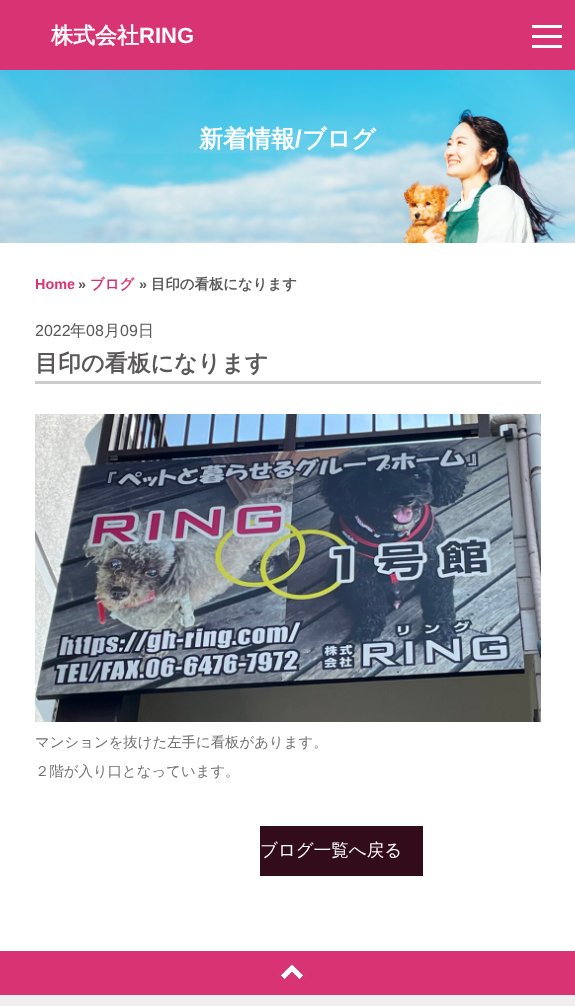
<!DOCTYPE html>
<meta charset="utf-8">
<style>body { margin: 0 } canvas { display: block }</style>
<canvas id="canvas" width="575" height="1006"></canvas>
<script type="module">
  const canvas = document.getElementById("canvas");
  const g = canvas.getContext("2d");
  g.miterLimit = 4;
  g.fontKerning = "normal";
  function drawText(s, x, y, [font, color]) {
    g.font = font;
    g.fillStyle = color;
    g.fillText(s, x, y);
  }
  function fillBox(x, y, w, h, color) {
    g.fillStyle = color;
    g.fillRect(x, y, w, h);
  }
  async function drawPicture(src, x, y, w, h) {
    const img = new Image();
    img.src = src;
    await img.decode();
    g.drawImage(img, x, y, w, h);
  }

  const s1 = ["bold 22px WenQuanYi Zen Hei", "#FFFFFF"];
  const s2 = ["bold 22px Liberation Sans", "#FFFFFF"];
  const s3 = ["bold 24px WenQuanYi Zen Hei", "#FFFFFF"];
  const s4 = ["bold 24px Liberation Sans", "#FFFFFF"];
  const s5 = ["bold 14.4px Liberation Sans", "#D83473"];
  const s6 = ["bold 14.4px Liberation Sans", "#595757"];
  const s7 = ["bold 14.4px WenQuanYi Zen Hei", "#D83473"];
  const s8 = ["bold 14.4px WenQuanYi Zen Hei", "#595757"];
  const s9 = ["16px Liberation Sans", "#595757"];
  const s10 = ["500 16px WenQuanYi Zen Hei", "#595757"];
  const s11 = ["bold 23px WenQuanYi Zen Hei", "#595757"];
  const s12 = ["500 14.4px WenQuanYi Zen Hei", "#707070"];
  const s13 = ["500 17.5px WenQuanYi Zen Hei", "#FFFFFF"];

  fillBox(0, 0, 575, 1006, "#FFFFFF");
  fillBox(0, 0, 575, 70, "#D83473");
  drawText("株式会社", 51, 43, s1);
  drawText("RING", 139, 43, s2);
  fillBox(532, 25, 30, 3, "#FFFFFF");
  fillBox(532, 35, 30, 3, "#FFFFFF");
  fillBox(532, 45, 30, 3, "#FFFFFF");
  await drawPicture("pic1.png", 0, 70, 575, 173);
  drawText("新着情報", 199, 147, s3);
  drawText("/", 295, 147, s4);
  drawText("ブログ", 302, 147, s3);
  drawText("Home", 35, 289, s5);
  drawText("»", 78, 289, s6);
  drawText("ブログ", 90, 289, s7);
  drawText("»", 139, 289, s6);
  drawText("目印の看板になります", 151, 289, s8);
  drawText("2022", 35, 336, s9);
  drawText("年", 70, 336, s10);
  drawText("08", 86, 336, s9);
  drawText("月", 104, 336, s10);
  drawText("09", 120, 336, s9);
  drawText("日", 138, 336, s10);
  fillBox(35, 381, 506, 3, "#CCCCCC");
  drawText("目印の看板になります", 35, 371, s11);
  await drawPicture("pic2.png", 35, 414, 506, 308);
  drawText("マンションを抜けた左手に看板があります。", 35, 747, s12);
  drawText("２階が入り口となっています。", 35, 776, s12);
  fillBox(260, 826, 163, 50, "#330C1B");
  drawText("ブログ一覧へ戻る", 260, 856, s13);
  fillBox(0, 951, 575, 44, "#D83473");
  await drawPicture("pic3.png", 278, 963, 29, 16);
  fillBox(0, 995, 575, 11, "#EEEEEE");
</script>
